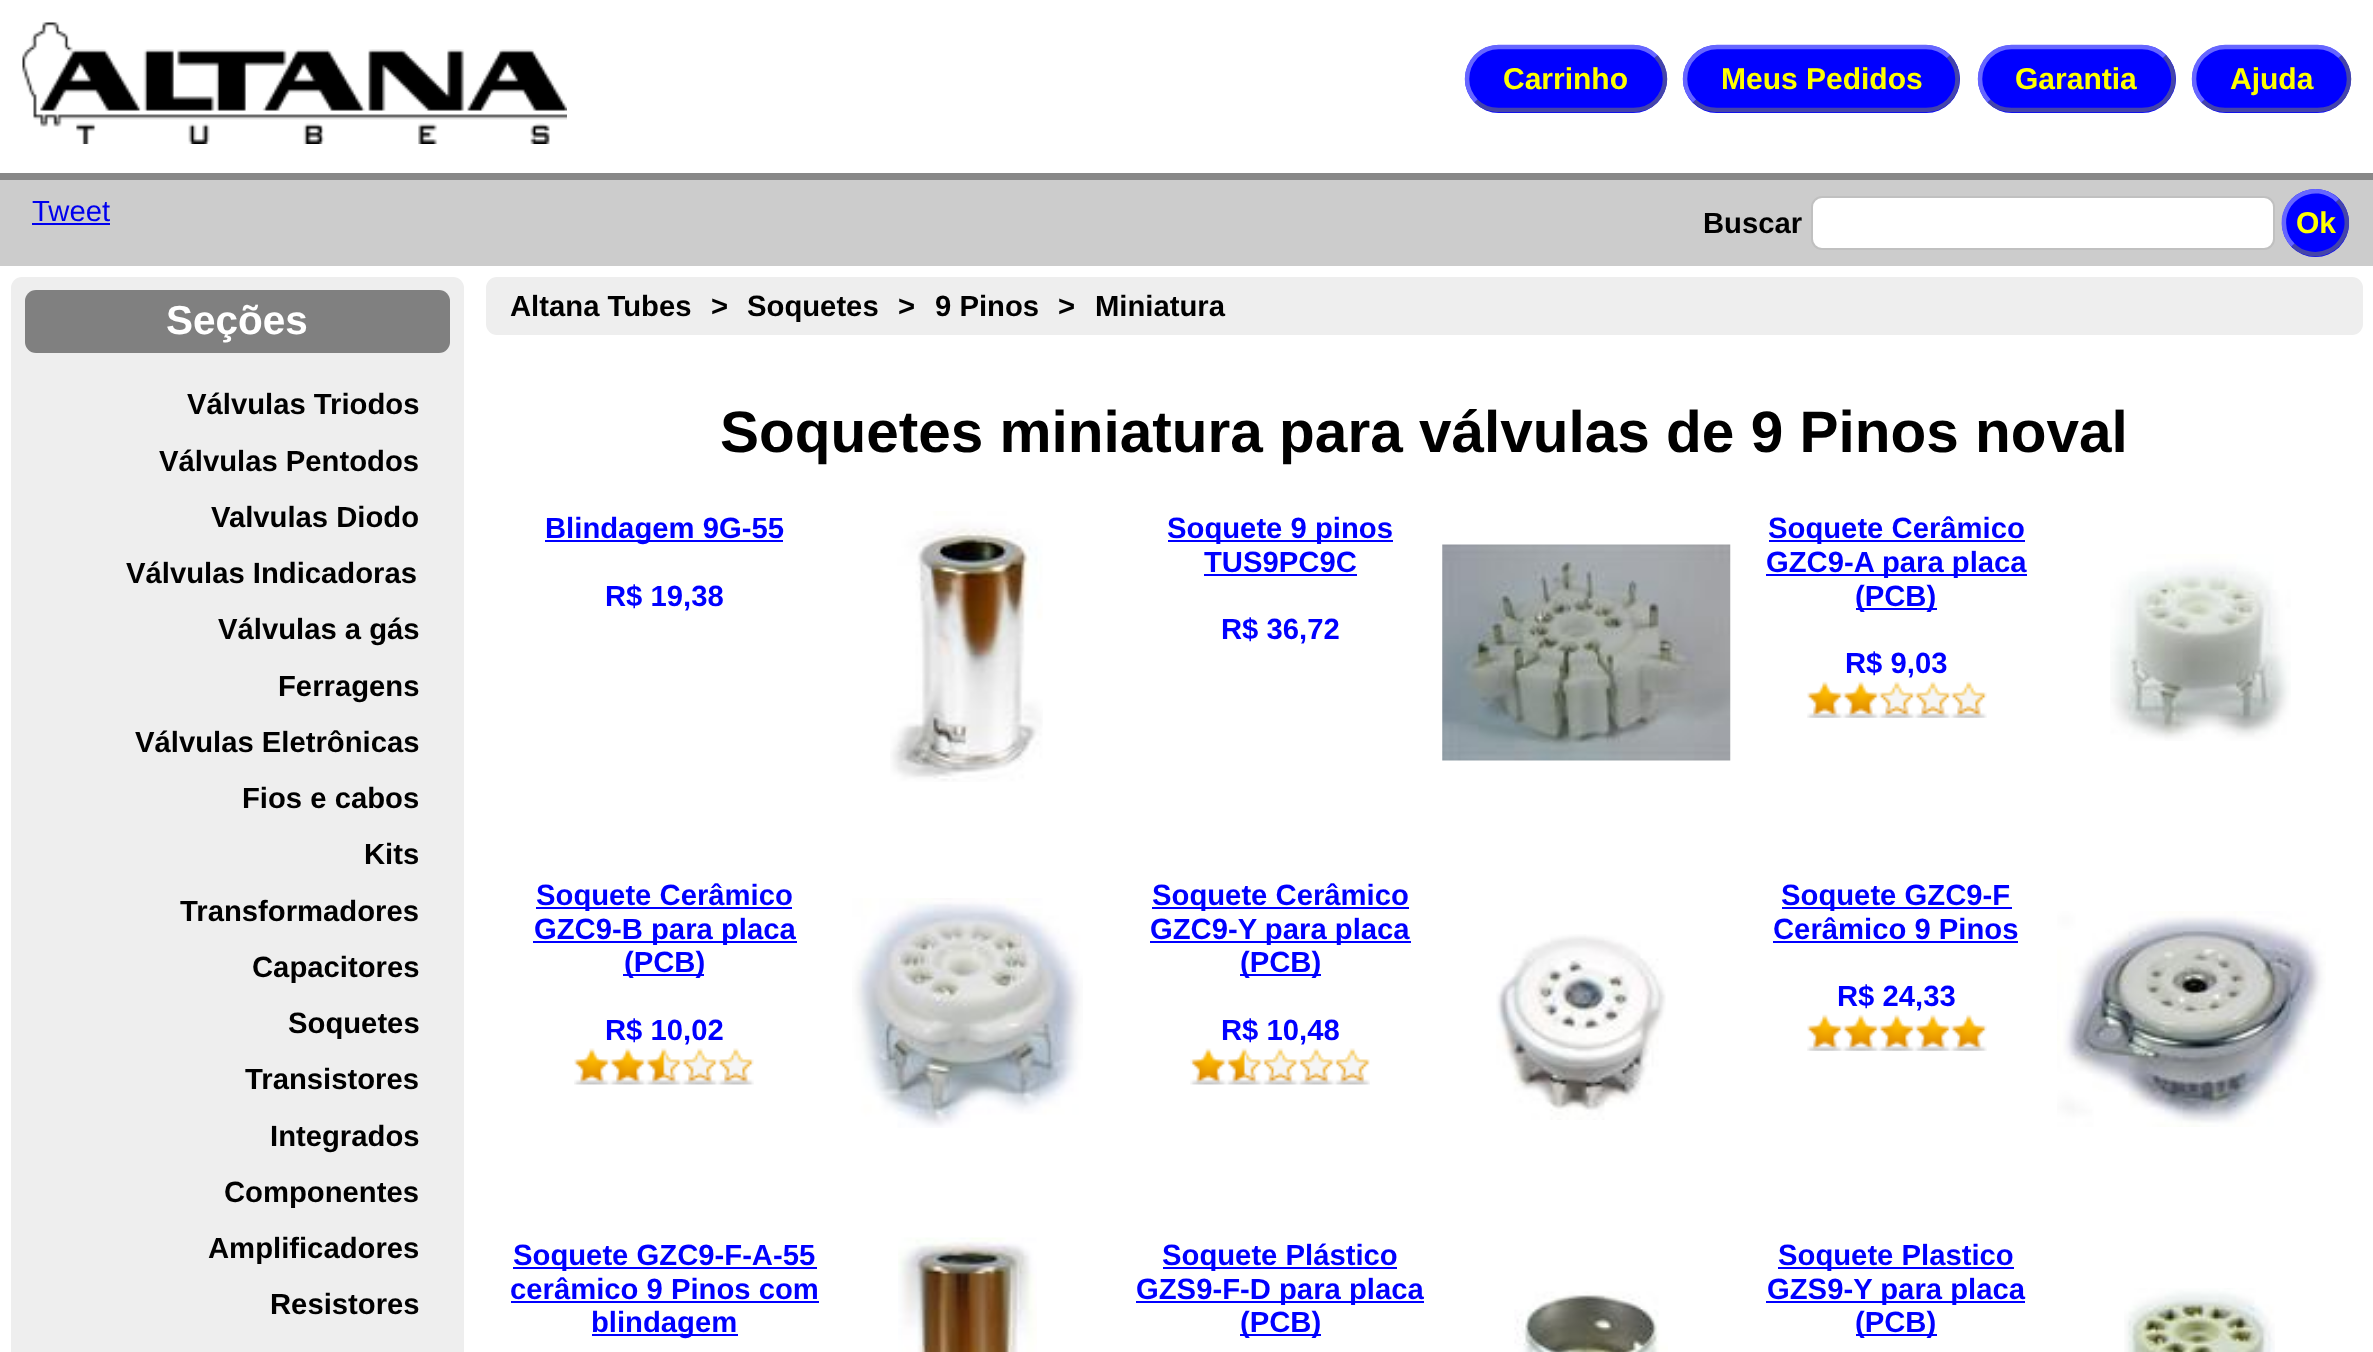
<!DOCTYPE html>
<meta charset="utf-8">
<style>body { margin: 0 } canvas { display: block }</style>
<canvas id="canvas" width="2373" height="1352"></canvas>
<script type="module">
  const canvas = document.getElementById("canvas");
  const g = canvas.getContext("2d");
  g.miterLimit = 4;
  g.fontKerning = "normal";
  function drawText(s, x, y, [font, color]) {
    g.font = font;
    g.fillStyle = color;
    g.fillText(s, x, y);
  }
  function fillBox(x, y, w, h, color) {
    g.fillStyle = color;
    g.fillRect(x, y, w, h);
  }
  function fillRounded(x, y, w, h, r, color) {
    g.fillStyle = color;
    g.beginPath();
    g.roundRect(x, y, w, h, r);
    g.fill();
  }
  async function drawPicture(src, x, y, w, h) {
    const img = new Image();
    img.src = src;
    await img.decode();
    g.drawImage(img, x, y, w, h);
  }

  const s1 = ["bold 30px Liberation Sans", "#FFFF00"];
  const s2 = ["29.25px Liberation Sans", "#0000EE"];
  const s3 = ["bold 29.25px Liberation Sans", "#000000"];
  const s4 = ["bold 40.5px Liberation Sans", "#FFFFFF"];
  const s5 = ["bold 58.5px Liberation Sans", "#000000"];
  const s6 = ["bold 29.25px Liberation Sans", "#0000FF"];

  fillBox(0, 0, 2373, 1352, "#FFFFFF");
  fillBox(0, 173, 2373, 7, "#888888");
  await drawPicture("pic1.png", 22, 22, 545, 122);
  fillRounded(1465, 45, 202, 68, 34, "#0000FF");
  g.beginPath();
  g.moveTo(1656, 56.5);
  g.bezierCurveTo(1661.5, 62.5, 1665, 70.5, 1665, 79);
  g.bezierCurveTo(1665, 87, 1661.5, 95, 1656, 101);
  g.bezierCurveTo(1650, 107, 1642, 110, 1633.5, 110);
  g.lineTo(1498.5, 110);
  g.bezierCurveTo(1490, 110, 1482, 107, 1476, 101);
  g.strokeStyle = "#4444AA";
  g.lineWidth = 4.5;
  g.stroke();
  g.beginPath();
  g.moveTo(1476, 101);
  g.bezierCurveTo(1470.5, 95, 1467, 87, 1467, 79);
  g.bezierCurveTo(1467, 70.5, 1470.5, 62.5, 1476, 56.5);
  g.bezierCurveTo(1482, 50.5, 1490, 47, 1498.5, 47);
  g.lineTo(1633.5, 47);
  g.bezierCurveTo(1642, 47, 1650, 50.5, 1656, 56.5);
  g.strokeStyle = "#6666FF";
  g.stroke();
  drawText("Carrinho", 1503, 89, s1);
  fillRounded(1683, 45, 277, 68, 34, "#0000FF");
  g.beginPath();
  g.moveTo(1948.5, 56.5);
  g.bezierCurveTo(1954, 62.5, 1957.5, 70.5, 1957.5, 79);
  g.bezierCurveTo(1957.5, 87, 1954, 95, 1948.5, 101);
  g.bezierCurveTo(1942.5, 107, 1934.5, 110, 1926, 110);
  g.lineTo(1717, 110);
  g.bezierCurveTo(1708.5, 110, 1700.5, 107, 1694.5, 101);
  g.strokeStyle = "#4444AA";
  g.stroke();
  g.beginPath();
  g.moveTo(1694.5, 101);
  g.bezierCurveTo(1688.5, 95, 1685, 87, 1685, 79);
  g.bezierCurveTo(1685, 70.5, 1688.5, 62.5, 1694.5, 56.5);
  g.bezierCurveTo(1700.5, 50.5, 1708.5, 47, 1717, 47);
  g.lineTo(1926, 47);
  g.bezierCurveTo(1934.5, 47, 1942.5, 50.5, 1948.5, 56.5);
  g.strokeStyle = "#6666FF";
  g.stroke();
  drawText("Meus Pedidos", 1721, 89, s1);
  fillRounded(1978, 45, 198, 68, 34, "#0000FF");
  g.beginPath();
  g.moveTo(2164.5, 56.5);
  g.bezierCurveTo(2170, 62.5, 2173.5, 70.5, 2173.5, 79);
  g.bezierCurveTo(2173.5, 87, 2170, 95, 2164.5, 101);
  g.bezierCurveTo(2158.5, 107, 2150.5, 110, 2142, 110);
  g.lineTo(2011.5, 110);
  g.bezierCurveTo(2003, 110, 1995, 107, 1989, 101);
  g.strokeStyle = "#4444AA";
  g.stroke();
  g.beginPath();
  g.moveTo(1989, 101);
  g.bezierCurveTo(1983.5, 95, 1980, 87, 1980, 79);
  g.bezierCurveTo(1980, 70.5, 1983.5, 62.5, 1989, 56.5);
  g.bezierCurveTo(1995, 50.5, 2003, 47, 2011.5, 47);
  g.lineTo(2142, 47);
  g.bezierCurveTo(2150.5, 47, 2158.5, 50.5, 2164.5, 56.5);
  g.strokeStyle = "#6666FF";
  g.stroke();
  drawText("Garantia", 2015, 89, s1);
  fillRounded(2192, 45, 159, 68, 34, "#0000FF");
  g.beginPath();
  g.moveTo(2340, 56.5);
  g.bezierCurveTo(2345.5, 62.5, 2349, 70.5, 2349, 79);
  g.bezierCurveTo(2349, 87, 2345.5, 95, 2340, 101);
  g.bezierCurveTo(2334, 107, 2326, 110, 2317.5, 110);
  g.lineTo(2225, 110);
  g.bezierCurveTo(2217, 110, 2209, 107, 2203, 101);
  g.strokeStyle = "#4444AA";
  g.stroke();
  g.beginPath();
  g.moveTo(2203, 101);
  g.bezierCurveTo(2197, 95, 2194, 87, 2194, 79);
  g.bezierCurveTo(2194, 70.5, 2197, 62.5, 2203, 56.5);
  g.bezierCurveTo(2209, 50.5, 2217, 47, 2225, 47);
  g.lineTo(2317.5, 47);
  g.bezierCurveTo(2326, 47, 2334, 50.5, 2340, 56.5);
  g.strokeStyle = "#6666FF";
  g.stroke();
  drawText("Ajuda", 2230, 89, s1);
  fillBox(0, 180, 2373, 86, "#CCCCCC");
  drawText("Tweet", 32, 221, s2);
  fillBox(32, 223, 78, 2, "#0000EE");
  drawText("Buscar", 1703, 233, s3);
  g.fillStyle = "#FFFFFF";
  g.beginPath();
  g.roundRect(1812, 197, 462, 52, 10);
  g.fill();
  g.strokeStyle = "#C0C0C0";
  g.lineWidth = 2;
  g.stroke();
  fillRounded(2282, 189, 67, 68, 33.5, "#0000FF");
  g.beginPath();
  g.moveTo(2337.5, 200.5);
  g.bezierCurveTo(2359.5, 222.5, 2339.5, 259.5, 2309, 253.5);
  g.bezierCurveTo(2303, 252.5, 2297.5, 249.5, 2293, 245);
  g.strokeStyle = "#4444AA";
  g.lineWidth = 4.5;
  g.stroke();
  g.beginPath();
  g.moveTo(2293, 245);
  g.bezierCurveTo(2288.5, 240.5, 2285.5, 235, 2284.5, 229);
  g.bezierCurveTo(2278.5, 198.5, 2315.5, 178.5, 2337.5, 200.5);
  g.strokeStyle = "#6666FF";
  g.stroke();
  drawText("Ok", 2296, 233, s1);
  fillRounded(11, 277, 453, 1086, 11, "#EEEEEE");
  fillRounded(25, 290, 425, 63, 11, "#808080");
  drawText("Seções", 166, 334, s4);
  drawText("Válvulas Triodos", 187, 414, s3);
  drawText("Válvulas Pentodos", 159, 471, s3);
  drawText("Valvulas Diodo", 211, 527, s3);
  drawText("Válvulas Indicadoras", 126, 583, s3);
  drawText("Válvulas a gás", 218, 639, s3);
  drawText("Ferragens", 278, 696, s3);
  drawText("Válvulas Eletrônicas", 135, 752, s3);
  drawText("Fios e cabos", 242, 808, s3);
  drawText("Kits", 364, 864, s3);
  drawText("Transformadores", 180, 921, s3);
  drawText("Capacitores", 252, 977, s3);
  drawText("Soquetes", 288, 1033, s3);
  drawText("Transistores", 245, 1089, s3);
  drawText("Integrados", 270, 1146, s3);
  drawText("Componentes", 224, 1202, s3);
  drawText("Amplificadores", 208, 1258, s3);
  drawText("Resistores", 270, 1314, s3);
  fillRounded(486, 277, 1877, 58, 11, "#EEEEEE");
  drawText("Altana Tubes", 510, 316, s3);
  drawText(">", 711, 316, s3);
  drawText("Soquetes", 747, 316, s3);
  drawText(">", 898, 316, s3);
  drawText("9 Pinos", 935, 316, s3);
  drawText(">", 1058, 316, s3);
  drawText("Miniatura", 1095, 316, s3);
  drawText("Soquetes miniatura para válvulas de 9 Pinos noval", 720, 452, s5);
  fillBox(545, 540, 238, 2, "#0000FF");
  drawText("Blindagem 9G-55", 545, 538, s6);
  drawText("R$ 19,38", 605, 606, s6);
  await drawPicture("pic2.png", 890, 511, 153, 271);
  fillBox(1168, 540, 225, 2, "#0000FF");
  drawText("Soquete 9 pinos", 1167, 538, s6);
  drawText("TUS9PC9C", 1204, 572, s6);
  fillBox(1204, 574, 153, 2, "#0000FF");
  drawText("R$ 36,72", 1221, 639, s6);
  await drawPicture("pic3.png", 1442, 544, 289, 217);
  fillBox(1769, 540, 256, 2, "#0000FF");
  drawText("Soquete Cerâmico", 1768, 538, s6);
  fillBox(1766, 574, 261, 2, "#0000FF");
  drawText("GZC9-A para placa", 1766, 572, s6);
  fillBox(1856, 608, 81, 2, "#0000FF");
  drawText("(PCB)", 1855, 606, s6);
  drawText("R$ 9,03", 1845, 673, s6);
  await drawPicture("pic4.png", 1807, 681, 36, 37);
  await drawPicture("pic5.png", 1843, 681, 36, 37);
  await drawPicture("pic6.png", 1879, 681, 36, 37);
  await drawPicture("pic6.png", 1915, 681, 36, 37);
  await drawPicture("pic7.png", 1951, 681, 36, 37);
  await drawPicture("pic8.png", 2110, 554, 181, 187);
  fillBox(536, 907, 256, 2, "#0000FF");
  drawText("Soquete Cerâmico", 536, 905, s6);
  fillBox(533, 941, 264, 2, "#0000FF");
  drawText("GZC9-B para placa", 534, 939, s6);
  fillBox(623, 974, 81, 2, "#0000FF");
  drawText("(PCB)", 624, 972, s6);
  drawText("R$ 10,02", 605, 1040, s6);
  await drawPicture("pic9.png", 574, 1048, 36, 37);
  await drawPicture("pic10.png", 610, 1048, 36, 37);
  await drawPicture("pic11.png", 646, 1048, 36, 37);
  await drawPicture("pic12.png", 682, 1048, 36, 37);
  await drawPicture("pic12.png", 718, 1048, 36, 37);
  await drawPicture("pic13.png", 852, 898, 231, 230);
  fillBox(1152, 907, 257, 2, "#0000FF");
  drawText("Soquete Cerâmico", 1152, 905, s6);
  fillBox(1150, 941, 261, 2, "#0000FF");
  drawText("GZC9-Y para placa", 1150, 939, s6);
  fillBox(1240, 974, 81, 2, "#0000FF");
  drawText("(PCB)", 1240, 972, s6);
  drawText("R$ 10,48", 1221, 1040, s6);
  await drawPicture("pic14.png", 1190, 1048, 36, 37);
  await drawPicture("pic15.png", 1226, 1048, 36, 37);
  await drawPicture("pic16.png", 1262, 1048, 36, 37);
  await drawPicture("pic16.png", 1298, 1048, 36, 37);
  await drawPicture("pic17.png", 1334, 1048, 36, 37);
  await drawPicture("pic18.png", 1496, 934, 170, 186);
  fillBox(1782, 907, 230, 2, "#0000FF");
  drawText("Soquete GZC9-F", 1781, 905, s6);
  drawText("Cerâmico 9 Pinos", 1773, 939, s6);
  fillBox(1773, 941, 245, 2, "#0000FF");
  drawText("R$ 24,33", 1837, 1006, s6);
  await drawPicture("pic4.png", 1807, 1014, 36, 37);
  await drawPicture("pic5.png", 1843, 1014, 36, 37);
  await drawPicture("pic5.png", 1879, 1014, 36, 37);
  await drawPicture("pic5.png", 1915, 1014, 36, 37);
  await drawPicture("pic4.png", 1951, 1014, 36, 37);
  await drawPicture("pic19.png", 2057, 911, 269, 216);
  fillBox(513, 1267, 304, 2, "#0000FF");
  drawText("Soquete GZC9-F-A-55", 513, 1265, s6);
  drawText("cerâmico 9 Pinos com", 510, 1299, s6);
  fillBox(511, 1301, 308, 2, "#0000FF");
  fillBox(592, 1334, 146, 2, "#0000FF");
  drawText("blindagem", 591, 1332, s6);
  await drawPicture("pic20.png", 898, 1237, 139, 115);
  fillBox(1163, 1267, 234, 2, "#0000FF");
  drawText("Soquete Plástico", 1162, 1265, s6);
  fillBox(1136, 1301, 288, 2, "#0000FF");
  drawText("GZS9-F-D para placa", 1136, 1299, s6);
  fillBox(1240, 1334, 81, 2, "#0000FF");
  drawText("(PCB)", 1240, 1332, s6);
  await drawPicture("pic21.png", 1514, 1291, 154, 61);
  fillBox(1778, 1267, 236, 2, "#0000FF");
  drawText("Soquete Plastico", 1778, 1265, s6);
  fillBox(1766, 1301, 259, 2, "#0000FF");
  drawText("GZS9-Y para placa", 1767, 1299, s6);
  fillBox(1856, 1334, 81, 2, "#0000FF");
  drawText("(PCB)", 1855, 1332, s6);
  await drawPicture("pic22.png", 2124, 1288, 151, 64);
</script>
